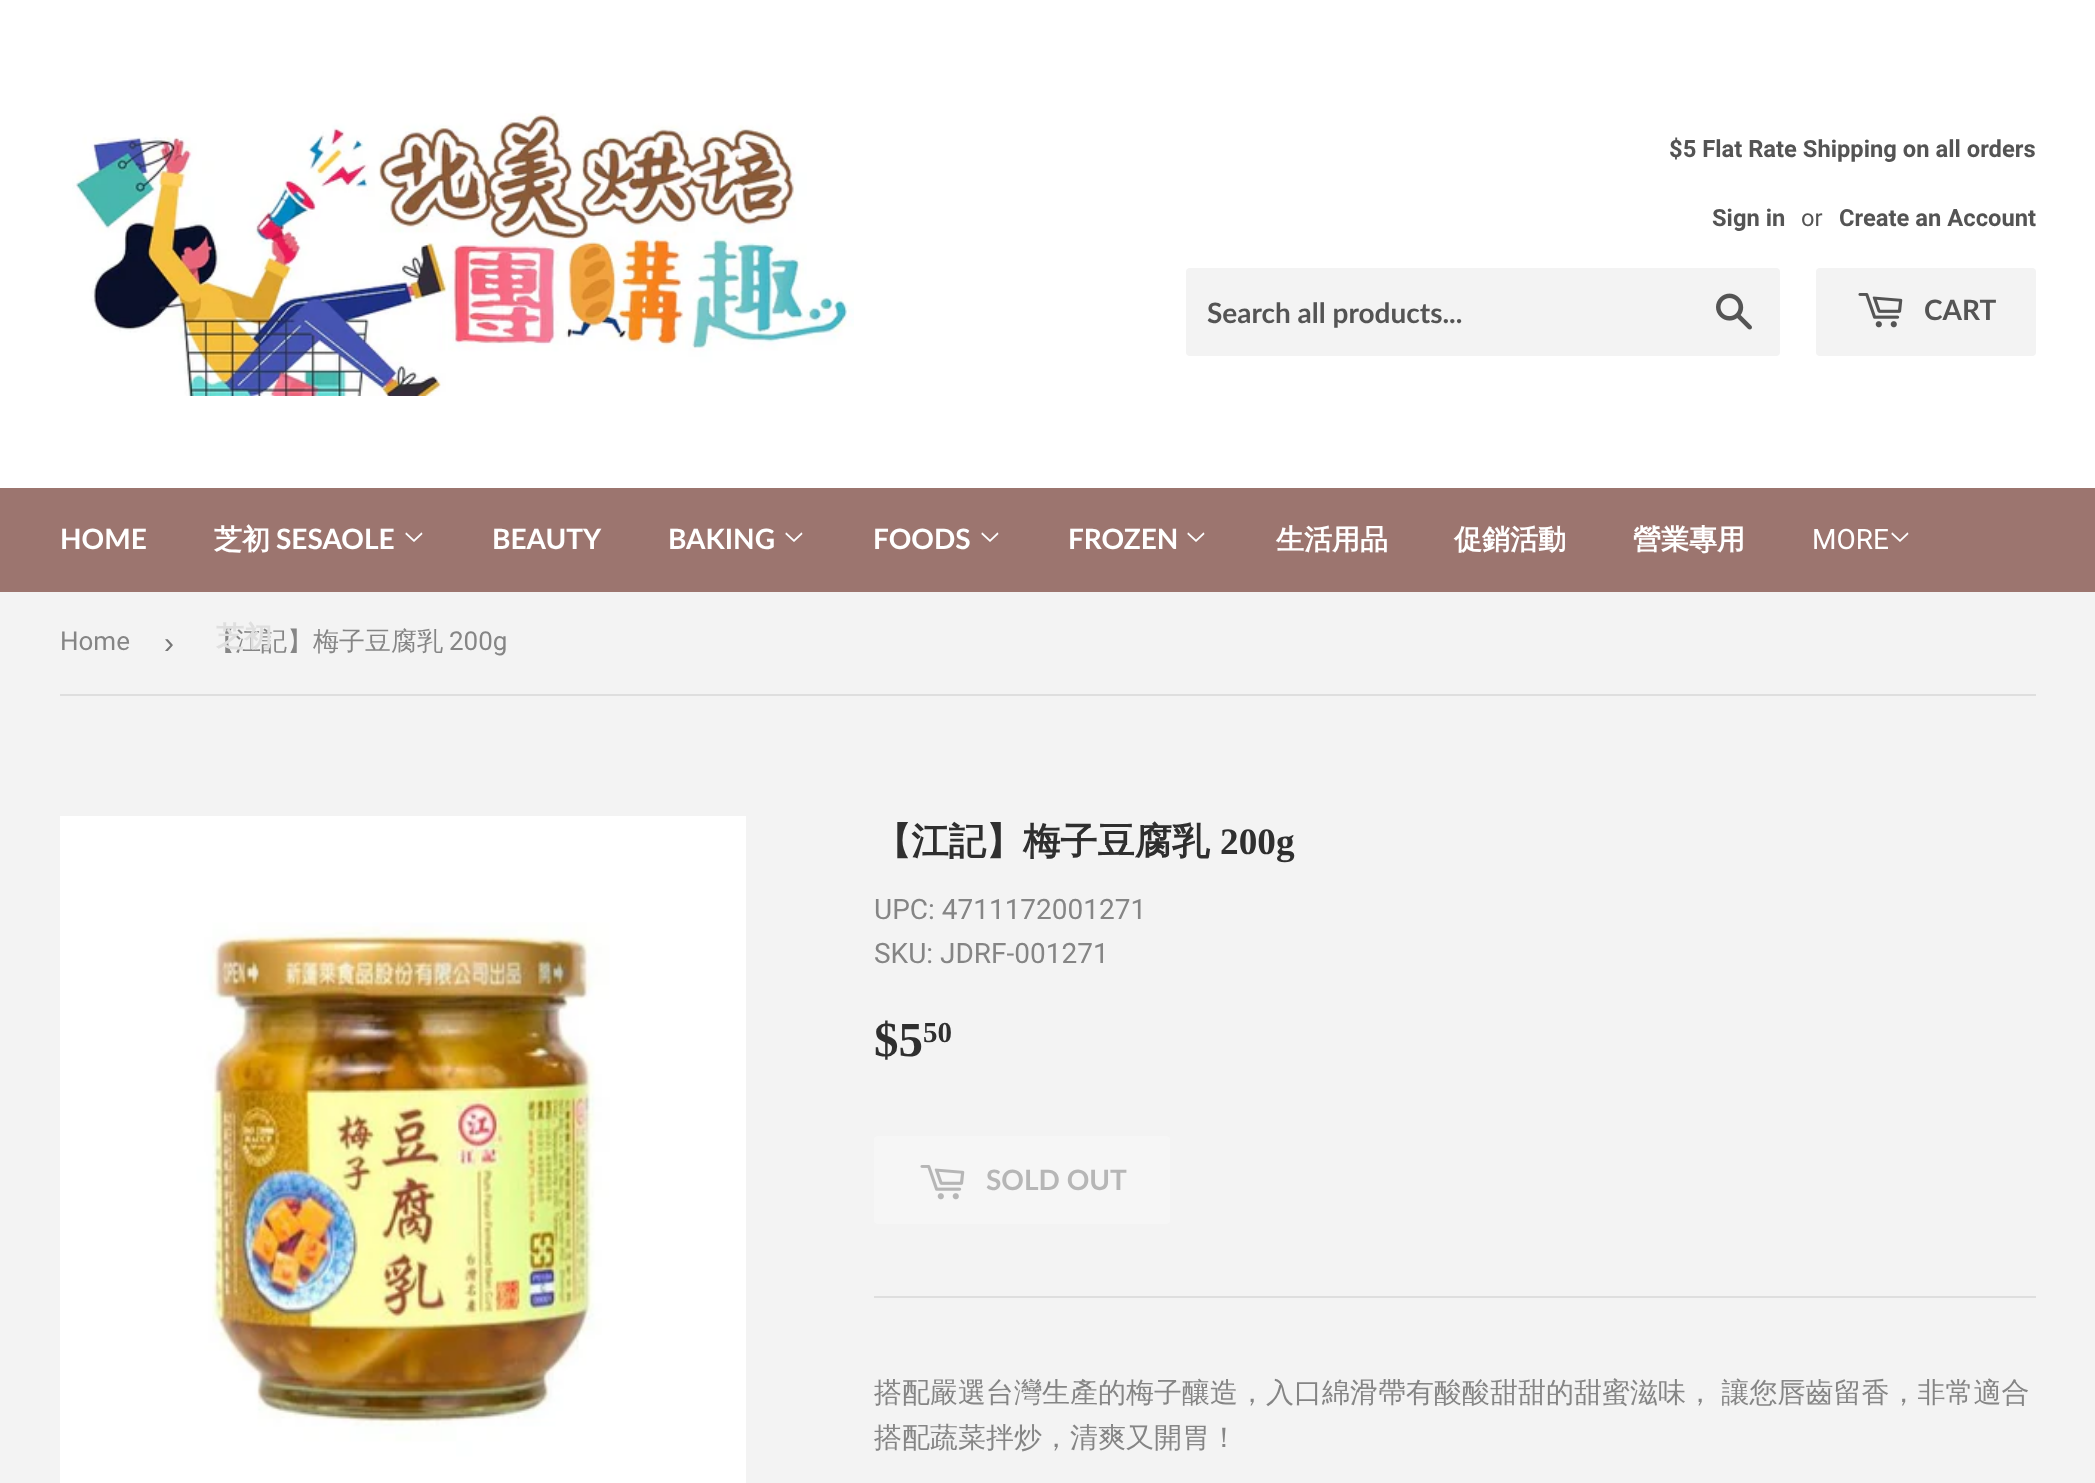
<!DOCTYPE html>
<meta charset="utf-8">
<style>body { margin: 0 } canvas { display: block }</style>
<canvas id="canvas" width="2095" height="1483"></canvas>
<script type="module">
  const canvas = document.getElementById("canvas");
  const g = canvas.getContext("2d");
  g.miterLimit = 4;
  g.fontKerning = "normal";
  function drawText(s, x, y, [font, color]) {
    g.font = font;
    g.fillStyle = color;
    g.fillText(s, x, y);
  }
  function fillBox(x, y, w, h, color) {
    g.fillStyle = color;
    g.fillRect(x, y, w, h);
  }
  function fillRounded(x, y, w, h, r, color) {
    g.fillStyle = color;
    g.beginPath();
    g.roundRect(x, y, w, h, r);
    g.fill();
  }
  async function drawPicture(src, x, y, w, h) {
    const img = new Image();
    img.src = src;
    await img.decode();
    g.drawImage(img, x, y, w, h);
  }

  const s1 = ["bold 23.75px Roboto", "#545454"];
  const s2 = ["23.75px Roboto", "#545454"];
  const s3 = ["bold 28px Lato", "#545454"];
  const s4 = ["bold 28px Lato", "#FFFFFF"];
  const s5 = ["bold 28px WenQuanYi Zen Hei", "#FFFFFF"];
  const s6 = ["500 26px WenQuanYi Zen Hei", "#858585"];
  const s7 = ["bold 28px WenQuanYi Zen Hei", "#DFDFDF"];
  const s8 = ["28px Roboto", "#FFFFFF"];
  const s9 = ["26px Roboto", "#858585"];
  const s10 = ["30px Liberation Sans", "#767676"];
  const s11 = ["bold 37.25px WenQuanYi Zen Hei", "#2F2F2F"];
  const s12 = ["bold 37.25px Liberation Serif", "#2F2F2F"];
  const s13 = ["28px Roboto", "#858585"];
  const s14 = ["bold 49px Liberation Serif", "#2F2F2F"];
  const s15 = ["bold 29px Liberation Serif", "#2F2F2F"];
  const s16 = ["bold 28px Lato", "#B6B6B6"];
  const s17 = ["500 28px WenQuanYi Zen Hei", "#858585"];

  fillBox(0, 0, 2095, 1483, "#F3F3F3");
  fillBox(0, 0, 2095, 488, "#FFFFFF");
  await drawPicture("pic1.png", 72, 113, 782, 283);
  drawText("$5 Flat Rate Shipping on all orders", 1669, 157, s1);
  drawText("Sign in", 1712, 226, s1);
  drawText("or", 1801, 226, s2);
  drawText("Create an Account", 1839, 226, s1);
  fillRounded(1186, 268, 594, 88, 4, "#F3F3F3");
  drawText("Search all products...", 1207, 323, s3);
  await drawPicture("pic2.png", 1716, 293, 36, 37);
  fillRounded(1816, 268, 220, 88, 4, "#F3F3F3");
  await drawPicture("pic3.png", 1858, 293, 45, 35);
  drawText("CART", 1924, 320, s3);
  fillBox(0, 488, 2095, 104, "#9C756F");
  drawText("HOME", 60, 549, s4);
  drawText("芝初", 214, 549, s5);
  drawText("SESAOLE", 276, 549, s4);
  await drawPicture("pic4.png", 405, 532, 18, 10);
  drawText("【江記】梅子豆腐乳", 209, 650, s6);
  drawText("芝初", 216, 646, s7);
  drawText("BEAUTY", 492, 549, s4);
  drawText("BAKING", 668, 549, s4);
  await drawPicture("pic4.png", 785, 532, 18, 10);
  drawText("FOODS", 873, 549, s4);
  await drawPicture("pic4.png", 981, 532, 18, 10);
  drawText("FROZEN", 1068, 549, s4);
  await drawPicture("pic4.png", 1187, 532, 18, 10);
  drawText("生活用品", 1276, 549, s5);
  drawText("促銷活動", 1454, 549, s5);
  drawText("營業專用", 1633, 549, s5);
  drawText("MORE", 1812, 549, s8);
  await drawPicture("pic4.png", 1891, 532, 18, 10);
  fillBox(60, 694, 1976, 2, "#DEDEDE");
  drawText("Home", 60, 650, s9);
  drawText("›", 164, 653, s10);
  drawText("200g", 449, 650, s9);
  await drawPicture("pic5.png", 60, 816, 686, 667);
  drawText("【江記】梅子豆腐乳", 874, 854, s11);
  drawText("200g", 1220, 854, s12);
  drawText("UPC: 4711172001271", 874, 919, s13);
  drawText("SKU: JDRF-001271", 874, 963, s13);
  drawText("$5", 874, 1056, s14);
  drawText("50", 923, 1042, s15);
  fillRounded(874, 1136, 296, 88, 4, "#F6F6F6");
  await drawPicture("pic6.png", 920, 1165, 45, 35);
  drawText("SOLD OUT", 986, 1190, s16);
  fillBox(874, 1296, 1162, 2, "#DEDEDE");
  g.wordSpacing = "-1px";
  drawText("搭配嚴選台灣生產的梅子釀造，入口綿滑帶有酸酸甜甜的甜蜜滋味， 讓您唇齒留香，非常適合", 874, 1402, s17);
  g.wordSpacing = "0px";
  drawText("搭配蔬菜拌炒，清爽又開胃！", 874, 1447, s17);
</script>
